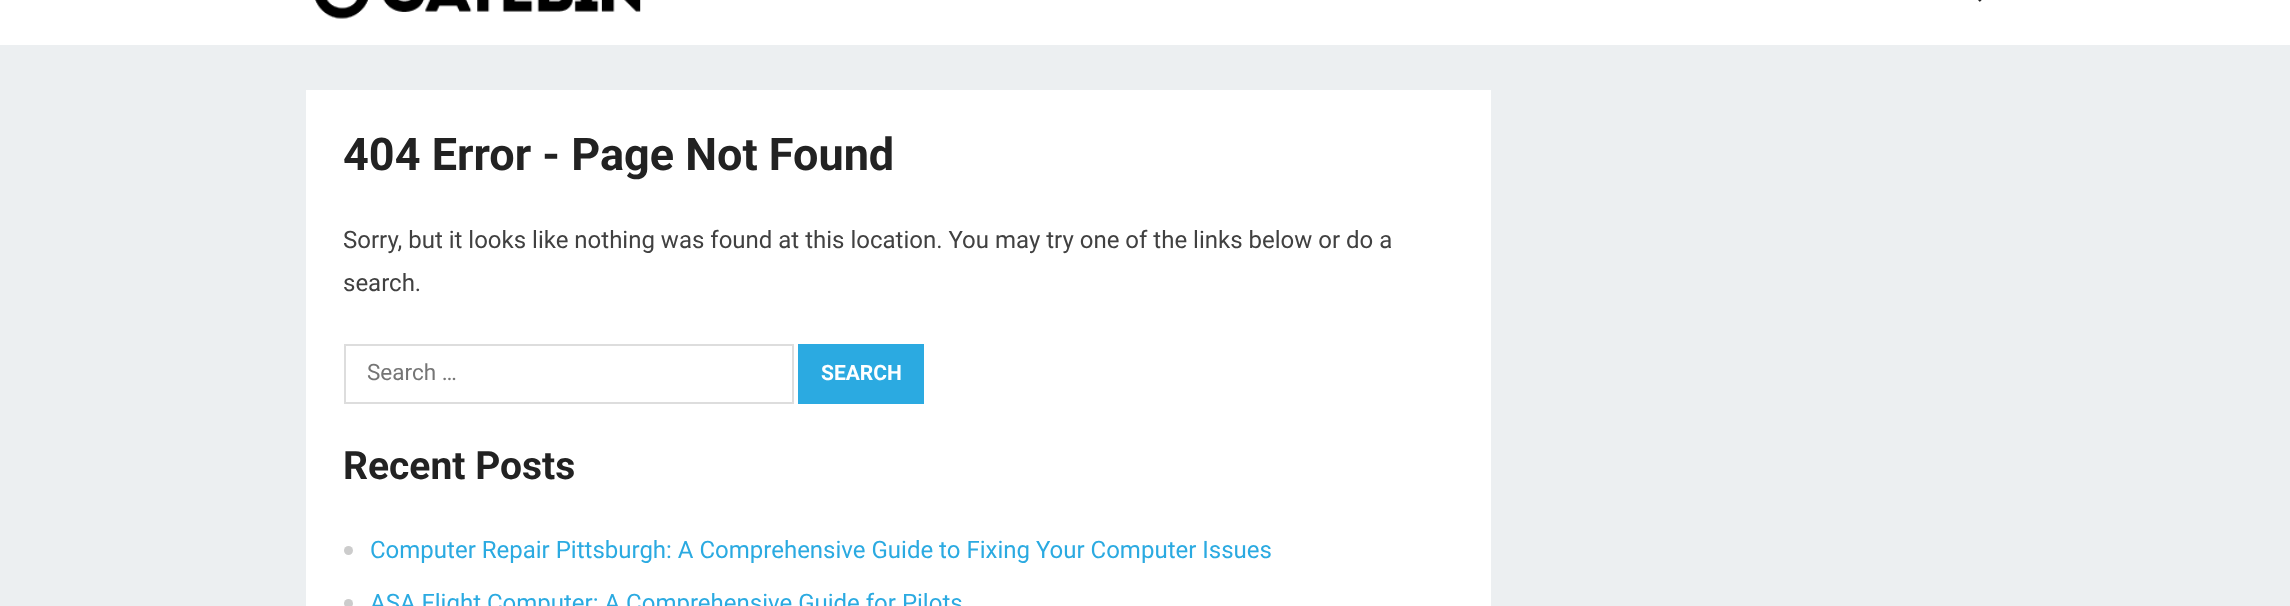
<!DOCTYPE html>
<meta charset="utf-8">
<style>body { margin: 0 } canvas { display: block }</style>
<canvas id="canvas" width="2290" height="606"></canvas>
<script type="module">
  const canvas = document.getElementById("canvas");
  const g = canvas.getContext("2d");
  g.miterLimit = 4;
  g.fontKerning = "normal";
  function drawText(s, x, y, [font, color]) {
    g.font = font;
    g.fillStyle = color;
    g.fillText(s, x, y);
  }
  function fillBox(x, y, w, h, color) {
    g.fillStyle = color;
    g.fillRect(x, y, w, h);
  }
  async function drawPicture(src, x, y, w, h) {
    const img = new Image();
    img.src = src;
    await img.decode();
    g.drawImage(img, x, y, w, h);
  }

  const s1 = ["bold 45px Roboto", "#222222"];
  const s2 = ["24px Roboto", "#414141"];
  const s3 = ["22.5px Roboto", "#757575"];
  const s4 = ["bold 21px Roboto", "#FFFFFF"];
  const s5 = ["bold 39px Roboto", "#222222"];
  const s6 = ["24px Roboto", "#2BAAE1"];

  fillBox(0, 0, 2290, 606, "#ECEFF1");
  fillBox(0, 0, 2290, 45, "#FFFFFF");
  await drawPicture("pic1.png", 315, 0, 326, 19);
  await drawPicture("pic2.png", 1978, 0, 4, 2);
  fillBox(306, 90, 1185, 516, "#FFFFFF");
  drawText("404 Error - Page Not Found", 343, 170, s1);
  drawText("Sorry, but it looks like nothing was found at this location. You may try one of the links below or do a", 343, 248, s2);
  drawText("search.", 343, 291, s2);
  g.strokeStyle = "#DDDDDD";
  g.lineWidth = 2;
  g.strokeRect(345, 345, 448, 58);
  drawText("Search …", 367, 380, s3);
  fillBox(798, 344, 126, 60, "#2BAAE1");
  drawText("SEARCH", 821, 380, s4);
  drawText("Recent Posts", 343, 479, s5);
  g.fillStyle = "#CCCCCC";
  g.beginPath();
  g.arc(348.5, 550.5, 4.5, 0, Math.PI * 2);
  g.fill();
  drawText("Computer Repair Pittsburgh: A Comprehensive Guide to Fixing Your Computer Issues", 370, 558, s6);
  g.fillStyle = "#CCCCCC";
  g.beginPath();
  g.arc(348.5, 603.5, 4.5, 0, Math.PI * 2);
  g.fill();
  drawText("ASA Flight Computer: A Comprehensive Guide for Pilots", 370, 611, s6);
</script>
